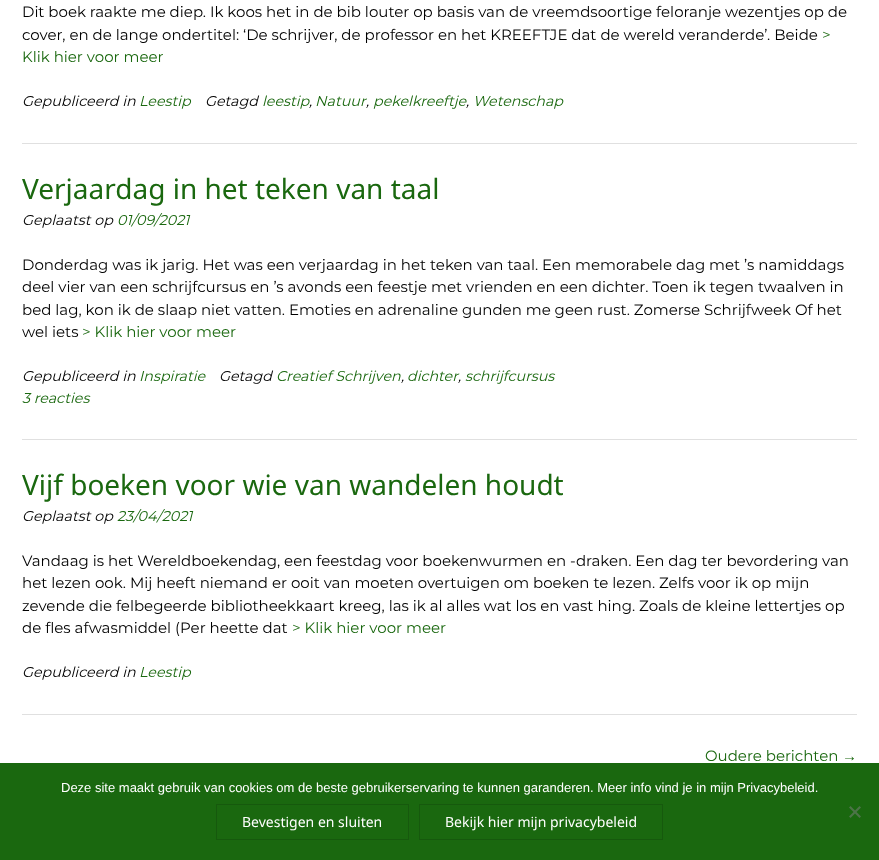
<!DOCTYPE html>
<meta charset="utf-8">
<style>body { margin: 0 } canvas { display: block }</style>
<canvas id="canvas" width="879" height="860"></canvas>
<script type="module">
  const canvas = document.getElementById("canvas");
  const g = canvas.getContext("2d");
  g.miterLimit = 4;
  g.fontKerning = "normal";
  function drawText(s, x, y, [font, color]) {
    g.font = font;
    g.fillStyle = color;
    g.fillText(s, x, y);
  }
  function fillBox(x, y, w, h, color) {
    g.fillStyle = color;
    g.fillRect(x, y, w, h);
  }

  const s1 = ["15px Montserrat", "#000000"];
  const s2 = ["15px Montserrat", "#1A680F"];
  const s3 = ["italic 14.25px Montserrat", "#000000"];
  const s4 = ["italic 14.25px Montserrat", "#1A680F"];
  const s5 = ["28px Noto Sans", "#1A680F"];
  const s6 = ["15px Liberation Sans", "#1A680F"];
  const s7 = ["13px Liberation Sans", "#FFFFFF"];
  const s8 = ["14px Noto Sans", "#FFFFFF"];

  fillBox(0, 0, 879, 860, "#FFFFFF");
  fillBox(22, 143, 835, 1, "#E0E0E0");
  drawText("Dit boek raakte me diep. Ik koos het in de bib louter op basis van de vreemdsoortige feloranje wezentjes op de", 22, 17, s1);
  drawText("cover, en de lange ondertitel: ‘De schrijver, de professor en het KREEFTJE dat de wereld veranderde’. Beide", 22, 40, s1);
  drawText(">", 822, 40, s2);
  drawText("Klik hier voor meer", 22, 62, s2);
  drawText("Gepubliceerd in", 22, 106, s3);
  drawText("Leestip", 139, 106, s4);
  drawText("Getagd", 205, 106, s3);
  drawText("leestip", 262, 106, s4);
  drawText("Natuur", 315, 106, s4);
  drawText("pekelkreeftje", 373, 106, s4);
  drawText("Wetenschap", 473, 106, s4);
  drawText(",", 309, 106, s3);
  drawText(",", 366, 106, s3);
  drawText(",", 466, 106, s3);
  fillBox(22, 439, 835, 1, "#E0E0E0");
  drawText("Verjaardag in het teken van taal", 22, 199, s5);
  drawText("Geplaatst op", 22, 225, s3);
  drawText("01/09/2021", 117, 225, s4);
  drawText("Donderdag was ik jarig. Het was een verjaardag in het teken van taal. Een memorabele dag met ’s namiddags", 22, 270, s1);
  drawText("deel vier van een schrijfcursus en ’s avonds een feestje met vrienden en een dichter. Toen ik tegen twaalven in", 22, 292, s1);
  drawText("bed lag, kon ik de slaap niet vatten. Emoties en adrenaline gunden me geen rust. Zomerse Schrijfweek Of het", 22, 315, s1);
  drawText("wel iets", 22, 337, s1);
  drawText("> Klik hier voor meer", 82, 337, s2);
  drawText("Gepubliceerd in", 22, 381, s3);
  drawText("Inspiratie", 139, 381, s4);
  drawText("Getagd", 219, 381, s3);
  drawText("Creatief Schrijven", 276, 381, s4);
  drawText(",", 401, 381, s3);
  drawText("dichter", 407, 381, s4);
  drawText("schrijfcursus", 465, 381, s4);
  drawText(",", 458, 381, s3);
  drawText("3 reacties", 22, 403, s4);
  fillBox(22, 714, 835, 1, "#E0E0E0");
  drawText("Vijf boeken voor wie van wandelen houdt", 22, 495, s5);
  drawText("Geplaatst op", 22, 521, s3);
  drawText("23/04/2021", 117, 521, s4);
  drawText("Vandaag is het Wereldboekendag, een feestdag voor boekenwurmen en -draken. Een dag ter bevordering van", 22, 566, s1);
  drawText("het lezen ook. Mij heeft niemand er ooit van moeten overtuigen om boeken te lezen. Zelfs voor ik op mijn", 22, 588, s1);
  drawText("zevende die felbegeerde bibliotheekkaart kreeg, las ik al alles wat los en vast hing. Zoals de kleine lettertjes op", 22, 611, s1);
  drawText("de fles afwasmiddel (Per heette dat", 22, 633, s1);
  drawText("> Klik hier voor meer", 292, 633, s2);
  drawText("Gepubliceerd in", 22, 677, s3);
  drawText("Leestip", 139, 677, s4);
  drawText("Oudere berichten", 705, 761, s2);
  drawText("→", 842, 761, s6);
  fillBox(0, 763, 879, 97, "#1A680F");
  drawText("Deze site maakt gebruik van cookies om de beste gebruikerservaring te kunnen garanderen. Meer info vind je in mijn Privacybeleid.", 61, 792, s7);
  g.fillStyle = "#4D7448";
  g.beginPath();
  g.moveTo(859.5, 806);
  g.lineTo(861, 807.5);
  g.lineTo(850.5, 818);
  g.lineTo(849, 816.5);
  g.closePath();
  g.fill();
  g.beginPath();
  g.moveTo(849, 807.5);
  g.lineTo(850.5, 806);
  g.lineTo(861, 816.5);
  g.lineTo(859.5, 818);
  g.closePath();
  g.fill();
  g.strokeStyle = "#16590D";
  g.strokeRect(216.5, 804.5, 192, 35);
  drawText("Bevestigen en sluiten", 242, 827, s8);
  g.strokeRect(419.5, 804.5, 243, 35);
  drawText("Bekijk hier mijn privacybeleid", 445, 827, s8);
</script>
